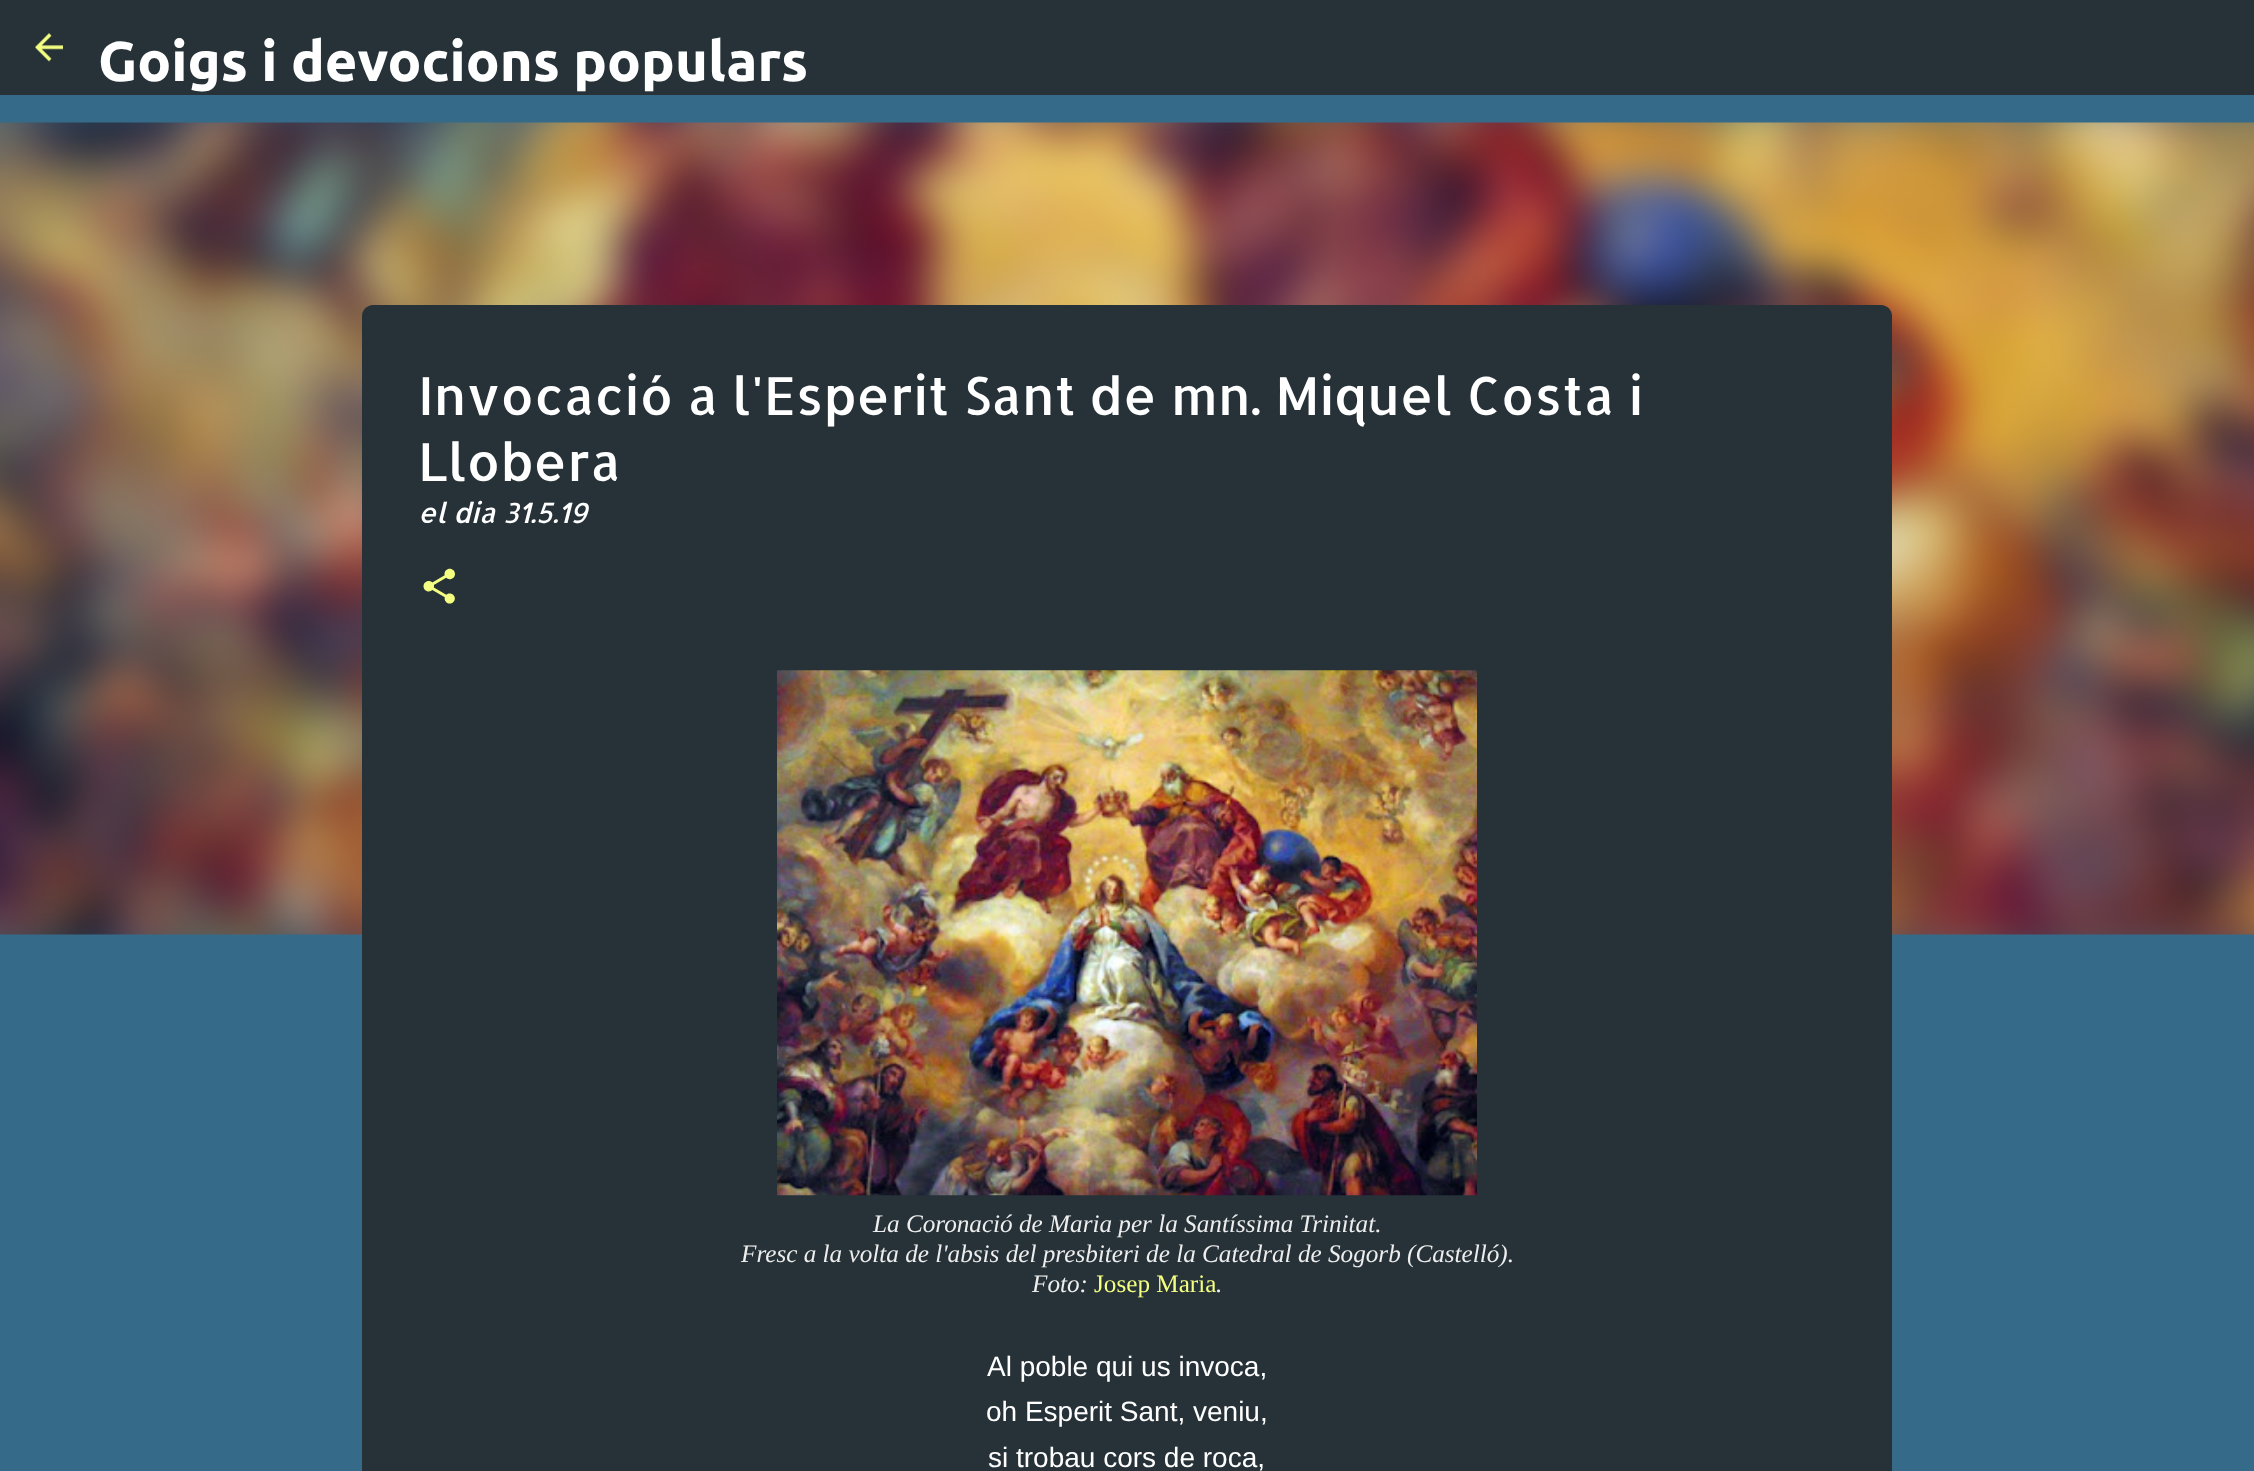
<!DOCTYPE html>
<meta charset="utf-8">
<style>body { margin: 0 } canvas { display: block }</style>
<canvas id="canvas" width="2254" height="1471"></canvas>
<script type="module">
  const canvas = document.getElementById("canvas");
  const g = canvas.getContext("2d");
  g.miterLimit = 4;
  g.fontKerning = "normal";
  function drawText(s, x, y, [font, color]) {
    g.font = font;
    g.fillStyle = color;
    g.fillText(s, x, y);
  }
  function fillBox(x, y, w, h, color) {
    g.fillStyle = color;
    g.fillRect(x, y, w, h);
  }
  async function drawPicture(src, x, y, w, h) {
    const img = new Image();
    img.src = src;
    await img.decode();
    g.drawImage(img, x, y, w, h);
  }

  const s1 = ["bold 56px Ubuntu", "#FFFFFF"];
  const s2 = ["52.5px Allerta", "#FFFFFF"];
  const s3 = ["italic 28px Allerta", "#FFFFFF"];
  const s4 = ["italic 25.2px Liberation Serif", "#EEEEEE"];
  const s5 = ["25.2px Liberation Serif", "#F4FF81"];
  const s6 = ["28px Liberation Sans", "#FFFFFF"];

  fillBox(0, 0, 2254, 1471, "#356A89");
  fillBox(0, 0, 2254, 95, "#263238");
  await drawPicture("pic1.png", 35, 33, 28, 29);
  drawText("Goigs i devocions populars", 98, 81, s1);
  await drawPicture("pic4.png", 0, 122, 2254, 813);
  g.fillStyle = "#263238";
  g.beginPath();
  g.moveTo(373, 305);
  g.lineTo(1881, 305);
  g.bezierCurveTo(1887, 305, 1892, 310, 1892, 316);
  g.lineTo(1892, 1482);
  g.lineTo(362, 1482);
  g.lineTo(362, 316);
  g.bezierCurveTo(362, 310, 367, 305, 373, 305);
  g.closePath();
  g.fill();
  drawText("Invocació a l'Esperit Sant de mn. Miquel Costa i", 418, 415, s2);
  drawText("Llobera", 418, 481, s2);
  drawText("el dia 31.5.19", 418, 523, s3);
  await drawPicture("pic2.png", 423, 568, 32, 36);
  await drawPicture("pic3.png", 777, 670, 700, 526);
  drawText("La Coronació de Maria per la Santíssima Trinitat.", 873, 1232, s4);
  drawText("Fresc a la volta de l'absis del presbiteri de la Catedral de Sogorb (Castelló).", 741, 1262, s4);
  drawText("Foto:", 1032, 1292, s4);
  drawText("Josep Maria", 1094, 1292, s5);
  drawText(".", 1216, 1292, s4);
  drawText("Al poble qui us invoca,", 987, 1376, s6);
  drawText("oh Esperit Sant, veniu,", 986, 1421, s6);
  drawText("si trobau cors de roca,", 988, 1467, s6);
</script>
